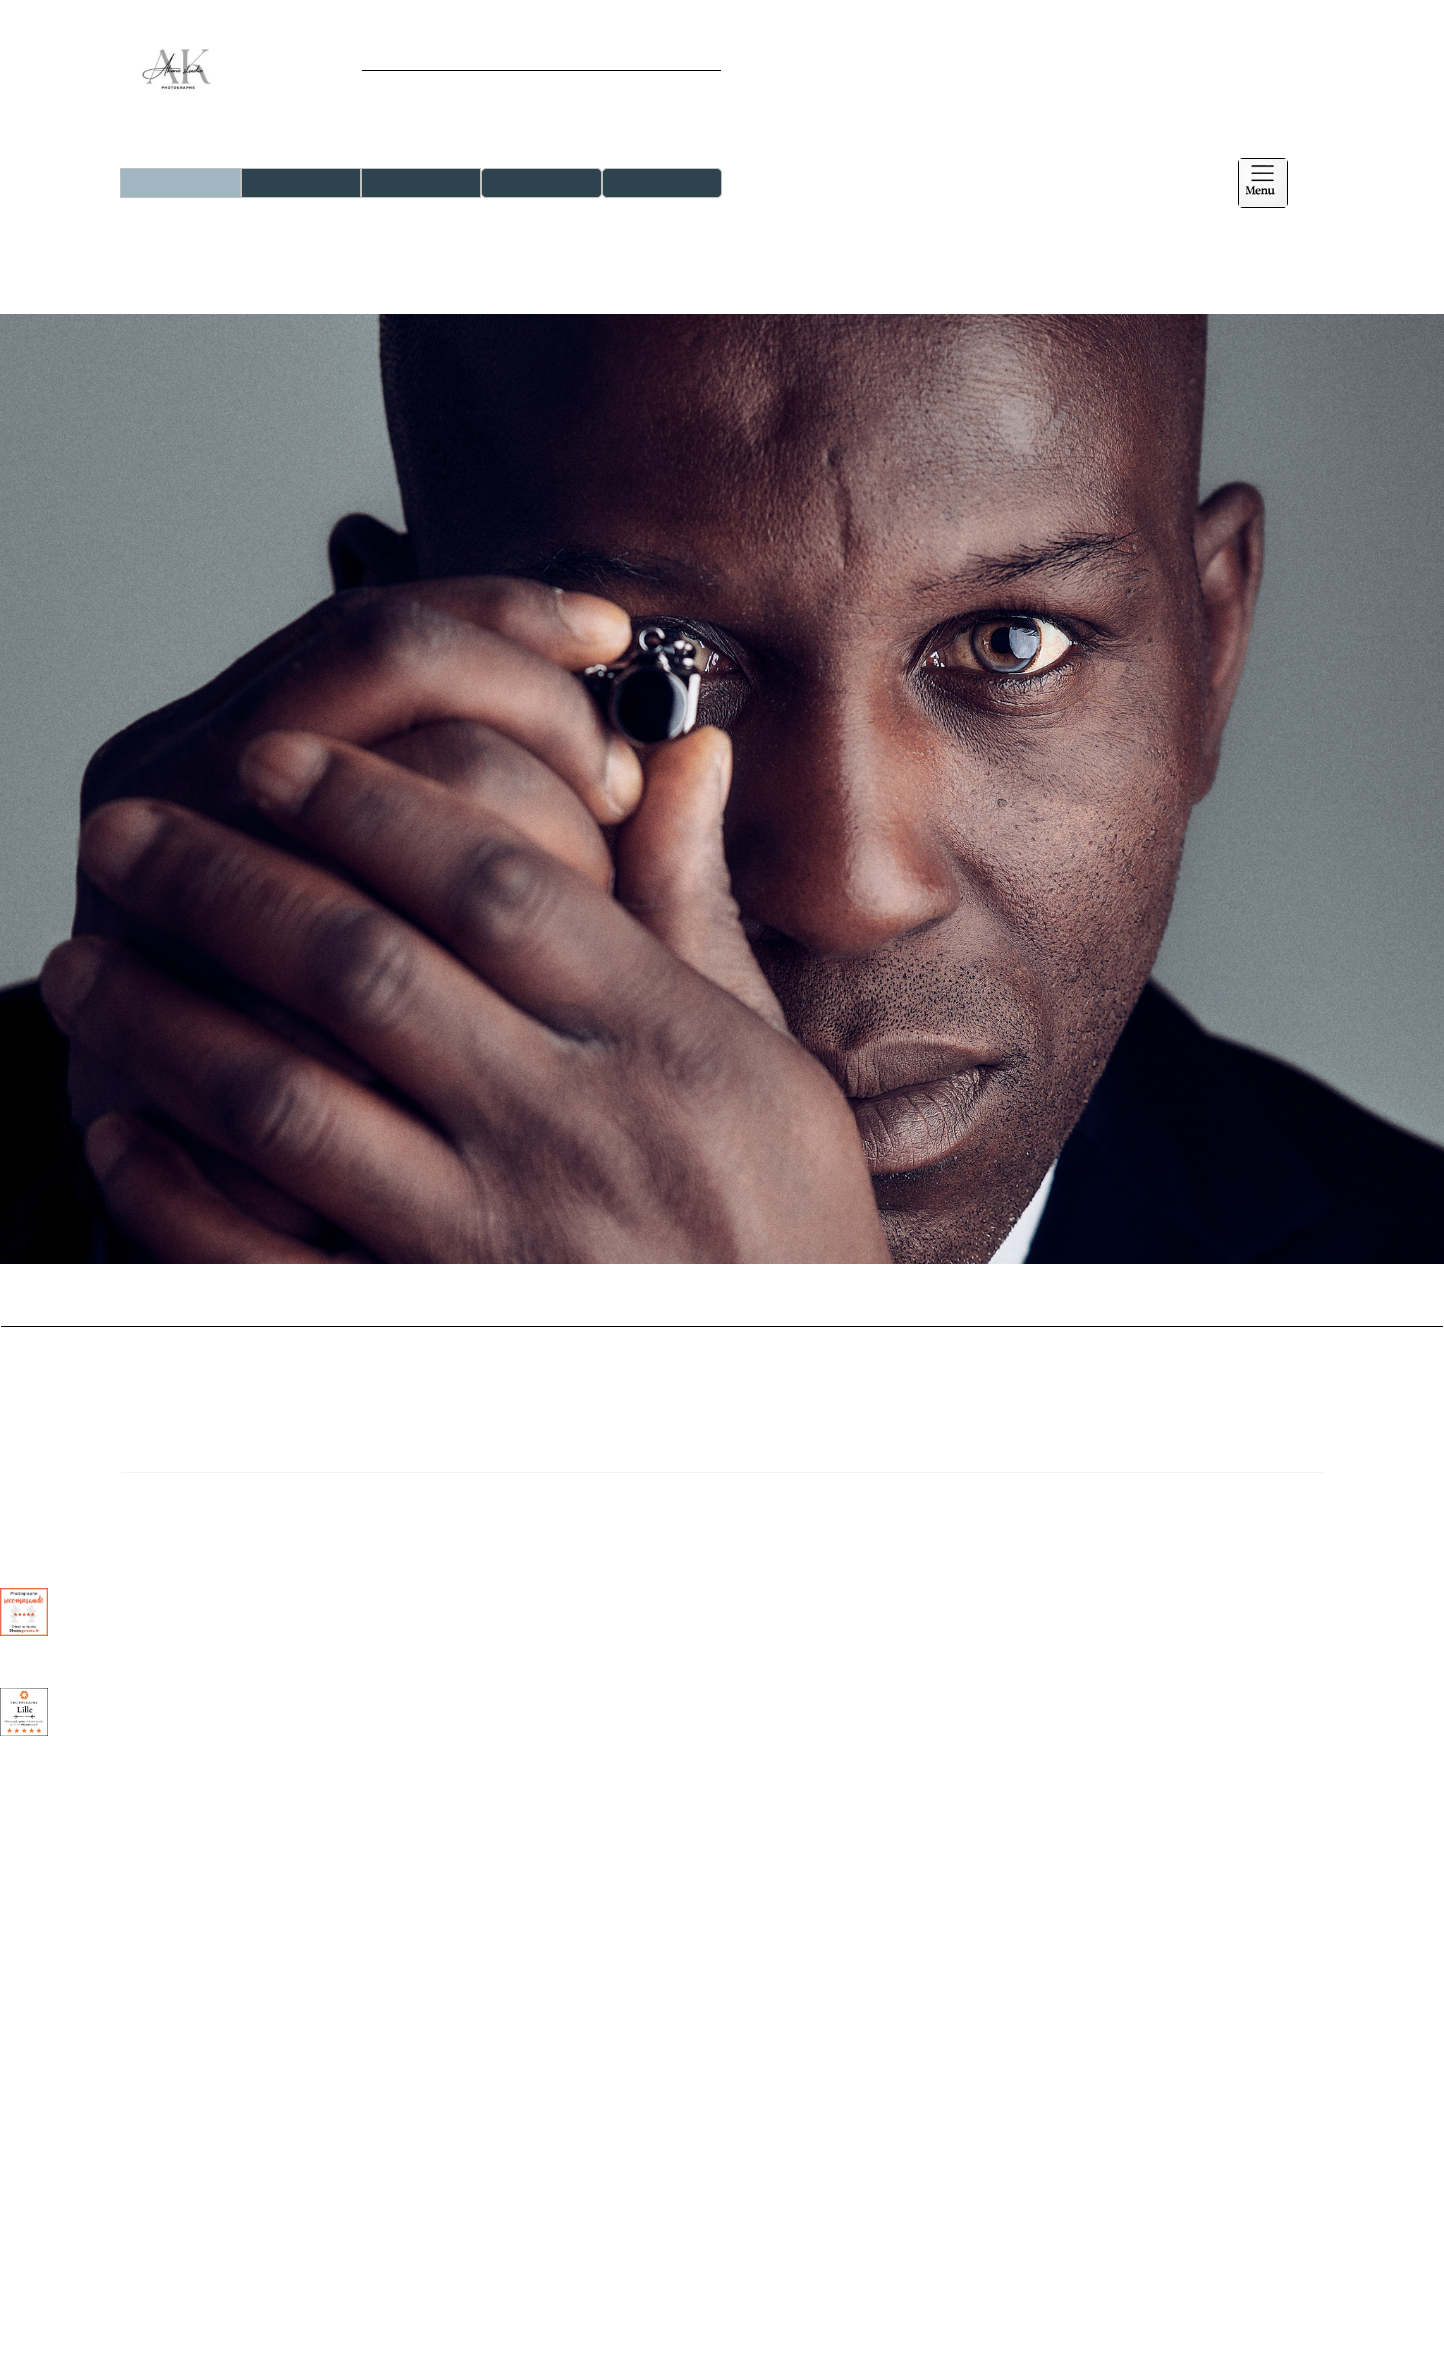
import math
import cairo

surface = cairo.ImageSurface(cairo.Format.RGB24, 1444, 2368)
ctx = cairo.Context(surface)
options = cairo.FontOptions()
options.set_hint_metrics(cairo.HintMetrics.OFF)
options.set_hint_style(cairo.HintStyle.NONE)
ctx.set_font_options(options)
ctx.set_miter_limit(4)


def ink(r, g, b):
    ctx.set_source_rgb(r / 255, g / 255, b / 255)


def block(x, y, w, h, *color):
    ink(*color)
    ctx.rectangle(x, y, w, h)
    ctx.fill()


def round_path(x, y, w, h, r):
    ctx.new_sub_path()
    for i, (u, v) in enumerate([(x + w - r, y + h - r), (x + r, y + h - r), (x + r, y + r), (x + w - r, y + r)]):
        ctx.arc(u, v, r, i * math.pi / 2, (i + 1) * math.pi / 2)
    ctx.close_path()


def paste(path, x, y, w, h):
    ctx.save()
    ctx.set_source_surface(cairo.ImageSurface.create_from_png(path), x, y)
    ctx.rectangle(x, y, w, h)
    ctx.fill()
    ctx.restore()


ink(255, 255, 255)
ctx.paint()
paste("pic1.png", 141, 48, 70, 42)
block(362, 70, 359, 1, 0, 0, 0)
ink(160, 183, 194)
ctx.rectangle(120.5, 168.5, 120, 29)
ctx.fill_preserve()
ink(192, 192, 192)
ctx.set_line_width(1)
ctx.stroke()
ink(45, 67, 77)
ctx.rectangle(241.5, 168.5, 119, 29)
ctx.fill_preserve()
ink(192, 192, 192)
ctx.stroke()
ink(45, 67, 77)
ctx.rectangle(361.5, 168.5, 119, 29)
ctx.fill_preserve()
ink(192, 192, 192)
ctx.stroke()
ink(45, 67, 77)
round_path(481.5, 168.5, 120, 29, 4.5)
ctx.fill_preserve()
ink(192, 192, 192)
ctx.stroke()
ink(45, 67, 77)
round_path(602.5, 168.5, 119, 29, 4.5)
ctx.fill_preserve()
ink(192, 192, 192)
ctx.stroke()
round_path(1238.5, 158.5, 49, 49, 4.5)
ink(0, 0, 0)
ctx.stroke()
paste("pic2.png", 1239, 159, 48, 48)
paste("pic3.png", 0, 314, 1444, 950)
block(1, 1326, 1442, 1, 0, 0, 0)
block(121, 1472, 1202, 1, 243, 243, 243)
paste("pic4.png", 0, 1588, 48, 48)
paste("pic5.png", 0, 1688, 48, 48)
surface.write_to_png("screenshot.png")
